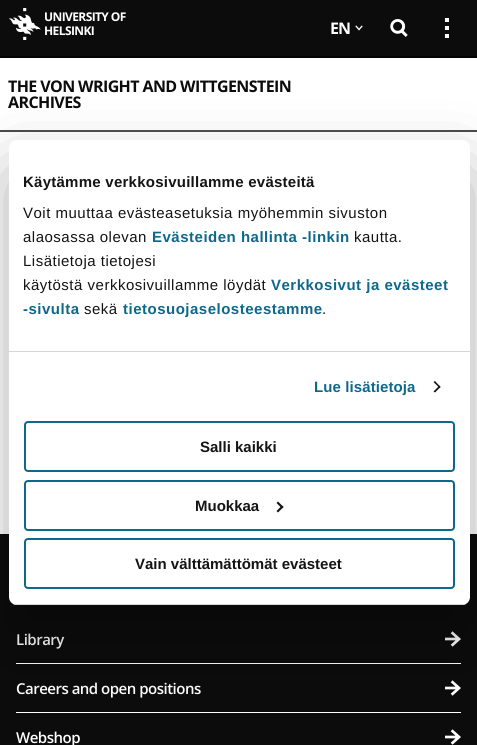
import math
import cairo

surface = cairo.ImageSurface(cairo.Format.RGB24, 477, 745)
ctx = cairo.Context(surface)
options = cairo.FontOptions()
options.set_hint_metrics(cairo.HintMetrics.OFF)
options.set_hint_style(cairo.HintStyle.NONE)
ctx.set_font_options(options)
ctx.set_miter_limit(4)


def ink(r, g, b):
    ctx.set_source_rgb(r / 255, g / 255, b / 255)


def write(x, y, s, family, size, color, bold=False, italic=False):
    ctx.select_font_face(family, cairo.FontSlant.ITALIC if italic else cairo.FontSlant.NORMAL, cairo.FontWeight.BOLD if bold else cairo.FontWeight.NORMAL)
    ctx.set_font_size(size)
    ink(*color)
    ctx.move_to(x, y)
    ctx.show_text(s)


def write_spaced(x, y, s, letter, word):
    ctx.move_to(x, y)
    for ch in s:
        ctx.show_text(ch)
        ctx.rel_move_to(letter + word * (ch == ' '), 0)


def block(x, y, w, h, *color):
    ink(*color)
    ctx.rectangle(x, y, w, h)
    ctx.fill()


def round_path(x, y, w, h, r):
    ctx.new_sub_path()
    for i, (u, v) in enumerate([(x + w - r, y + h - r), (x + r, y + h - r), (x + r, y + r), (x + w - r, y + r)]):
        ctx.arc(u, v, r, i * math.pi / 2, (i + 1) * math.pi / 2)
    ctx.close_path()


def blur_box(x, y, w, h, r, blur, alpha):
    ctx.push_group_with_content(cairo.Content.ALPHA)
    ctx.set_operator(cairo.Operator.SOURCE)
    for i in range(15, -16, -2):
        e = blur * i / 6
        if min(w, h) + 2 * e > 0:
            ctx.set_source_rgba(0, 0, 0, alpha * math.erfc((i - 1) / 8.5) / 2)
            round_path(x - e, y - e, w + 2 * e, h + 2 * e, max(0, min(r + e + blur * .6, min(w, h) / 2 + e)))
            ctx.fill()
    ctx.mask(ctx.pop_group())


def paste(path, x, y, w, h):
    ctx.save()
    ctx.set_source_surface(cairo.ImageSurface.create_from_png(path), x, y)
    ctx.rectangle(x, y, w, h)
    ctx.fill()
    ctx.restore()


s1 = dict(family="Liberation Sans", size=15, color=(20, 20, 20), bold=True)

ink(255, 255, 255)
ctx.paint()
block(0, 130, 477, 2, 77, 77, 77)
block(0, 0, 477, 56, 12, 12, 12)
block(0, 56, 477, 2, 4, 4, 4)
paste("pic1.png", 8, 8, 33, 32)
ctx.select_font_face("Open Sans", cairo.FontSlant.NORMAL, cairo.FontWeight.BOLD)
ctx.set_font_size(12)
ink(255, 255, 255)
write_spaced(44, 21, "UNIVERSITY OF", -0.6, 0)
write_spaced(44, 35, "HELSINKI", -0.6, 0)
ctx.set_font_size(16)
write_spaced(330, 34, "EN", -1, 0)
paste("pic2.png", 355, 25, 8, 6)
paste("pic3.png", 390, 19, 18, 18)
paste("pic4.png", 444, 18, 5, 20)
ink(12, 12, 12)
write_spaced(8, 92, "THE VON WRIGHT AND WITTGENSTEIN", -0.6, 0)
write_spaced(8, 108, "ARCHIVES", -0.6, 0)
block(0, 534, 477, 211, 12, 12, 12)
block(16, 663, 445, 1, 255, 255, 255)
ctx.select_font_face("Open Sans SemiBold")
ctx.set_font_size(15)
write_spaced(16, 645, "Library", -0.5, 0)
paste("pic5.png", 445, 631, 16, 16)
block(16, 712, 445, 1, 255, 255, 255)
write_spaced(16, 694, "Careers and open positions", -0.5, 0)
paste("pic5.png", 445, 680, 16, 16)
write_spaced(16, 743, "Webshop", -0.5, 0)
paste("pic5.png", 445, 729, 16, 16)
ink(0, 0, 0)
blur_box(9, 172, 461, 465, 8, 34, 0.3)
ink(255, 255, 255)
round_path(9, 140, 461, 465, 8)
ctx.fill()
block(9, 351, 461, 1, 214, 214, 214)
ctx.select_font_face("Liberation Sans", cairo.FontSlant.NORMAL, cairo.FontWeight.BOLD)
ink(20, 20, 20)
write_spaced(23, 187, "Käytämme verkkosivuillamme evästeitä", 0.25, 0)
ctx.select_font_face("Liberation Sans")
write_spaced(23, 218, "Voit muuttaa evästeasetuksia myöhemmin sivuston", 0.5, 0)
write_spaced(23, 242, "alaosassa olevan", 0.5, 0)
ctx.select_font_face("Liberation Sans", cairo.FontSlant.NORMAL, cairo.FontWeight.BOLD)
ink(14, 104, 139)
write_spaced(152, 242, "Evästeiden hallinta -linkin", 0.5, 0)
ctx.select_font_face("Liberation Sans")
ink(20, 20, 20)
write_spaced(354, 242, "kautta.", 0.5, 0)
write_spaced(23, 266, "Lisätietoja tietojesi", 0.5, 0)
write_spaced(23, 290, "käytöstä verkkosivuillamme löydät", 0.5, 0)
ctx.select_font_face("Liberation Sans", cairo.FontSlant.NORMAL, cairo.FontWeight.BOLD)
ink(14, 104, 139)
write_spaced(271, 290, "Verkkosivut ja evästeet", 0.5, 0)
write_spaced(23, 314, "-sivulta", 0.5, 0)
ctx.select_font_face("Liberation Sans")
ink(20, 20, 20)
write_spaced(84, 314, "sekä", 0.5, 0)
ctx.select_font_face("Liberation Sans", cairo.FontSlant.NORMAL, cairo.FontWeight.BOLD)
ink(14, 104, 139)
write_spaced(123, 314, "tietosuojaselosteestamme", 0.5, 0)
ctx.select_font_face("Liberation Sans")
ink(20, 20, 20)
write_spaced(322, 314, ".", 0.5, 0)
ctx.select_font_face("Liberation Sans", cairo.FontSlant.NORMAL, cairo.FontWeight.BOLD)
ink(14, 104, 139)
write_spaced(314, 392, "Lue lisätietoja", 0.1, 0)
ink(20, 20, 20)
ctx.new_path()
ctx.move_to(435, 381)
ctx.line_to(440.5, 387)
ctx.line_to(439.5, 388)
ctx.line_to(433.5, 382)
ctx.close_path()
ctx.fill()
ctx.new_path()
ctx.move_to(439.5, 385.5)
ctx.line_to(440.5, 387)
ctx.line_to(435, 392.5)
ctx.line_to(433.5, 391.5)
ctx.close_path()
ctx.fill()
ctx.save()
round_path(9, 140, 461, 465, 8)
ctx.clip()
block(9, 604, 461, 1, 214, 214, 214)
ctx.restore()
round_path(25, 422, 429, 49, 3)
ink(14, 104, 139)
ctx.stroke()
write(200, 452, "Salli kaikki", **s1)
round_path(25, 481, 429, 49, 3)
ink(14, 104, 139)
ctx.stroke()
write(195, 511, "Muokkaa", **s1)
ctx.new_path()
ctx.move_to(278, 501.5)
ctx.line_to(283.5, 507)
ctx.line_to(282, 508.5)
ctx.line_to(276.5, 503)
ctx.close_path()
ctx.fill()
ctx.new_path()
ctx.move_to(282, 505.5)
ctx.line_to(283.5, 507)
ctx.line_to(278, 512.5)
ctx.line_to(276.5, 511)
ctx.close_path()
ctx.fill()
round_path(25, 539, 429, 49, 3)
ink(14, 104, 139)
ctx.stroke()
write(135, 569, "Vain välttämättömät evästeet", **s1)
surface.write_to_png("screenshot.png")
